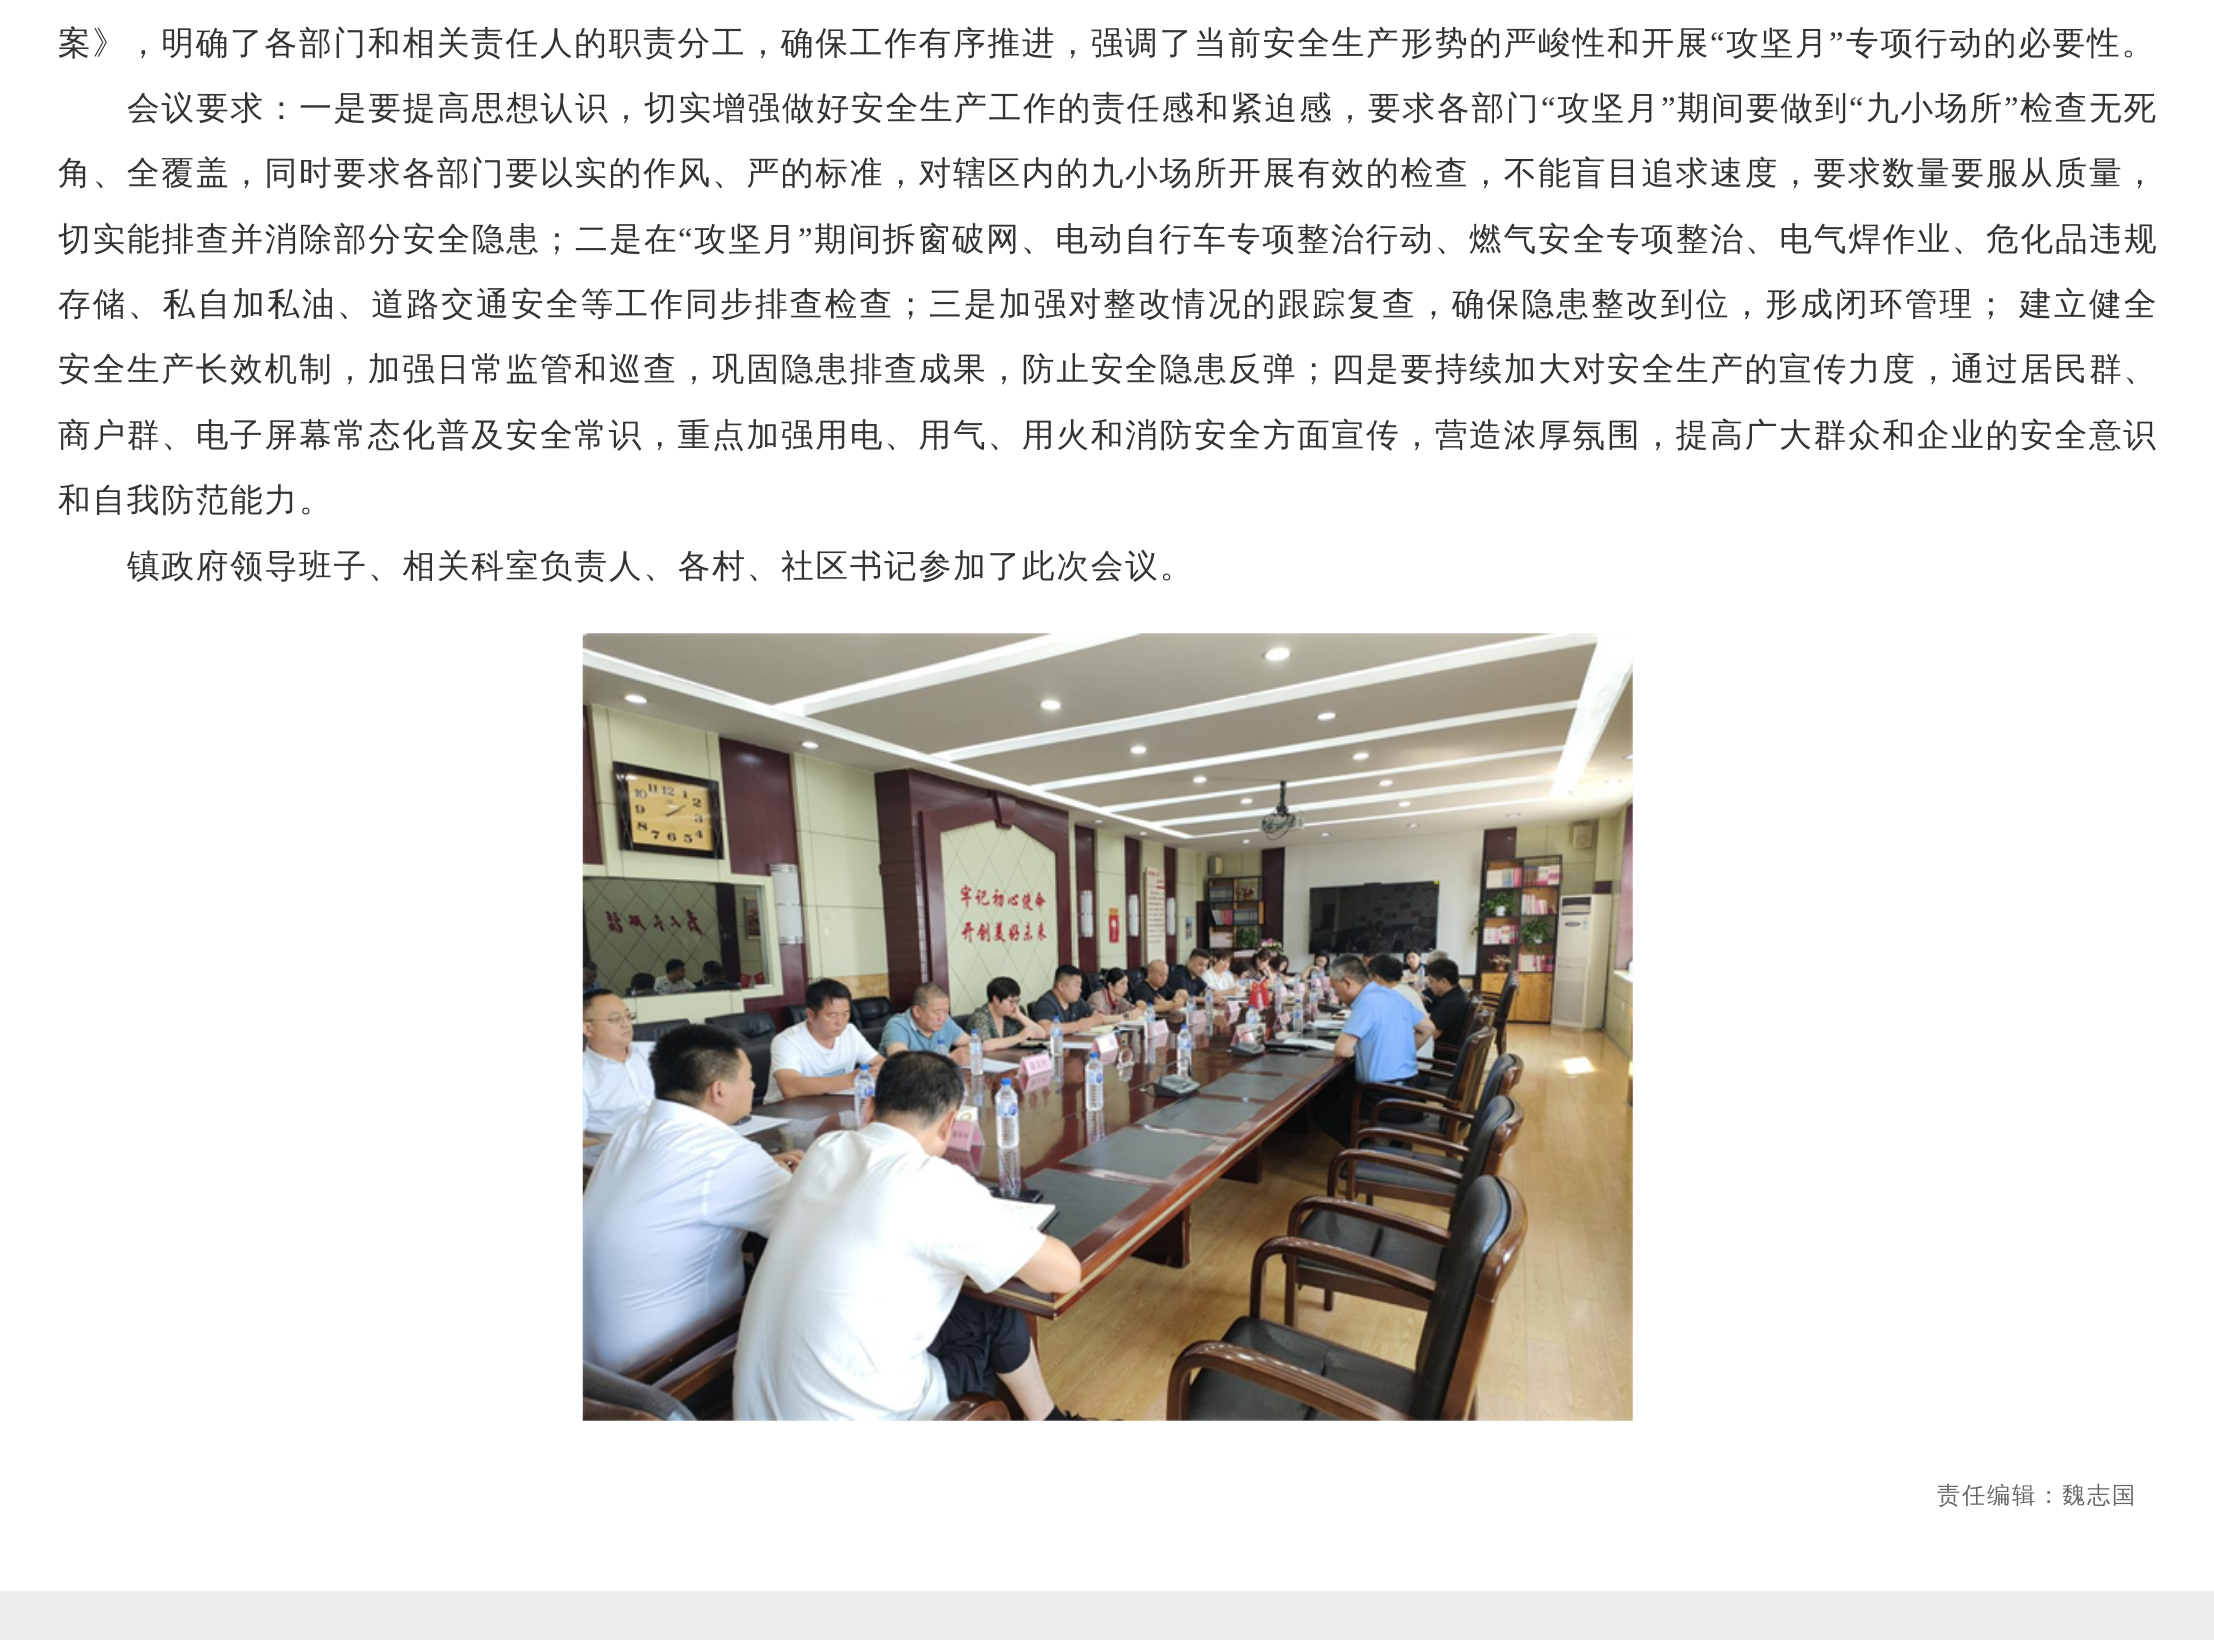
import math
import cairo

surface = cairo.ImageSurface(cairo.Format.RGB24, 2214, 1640)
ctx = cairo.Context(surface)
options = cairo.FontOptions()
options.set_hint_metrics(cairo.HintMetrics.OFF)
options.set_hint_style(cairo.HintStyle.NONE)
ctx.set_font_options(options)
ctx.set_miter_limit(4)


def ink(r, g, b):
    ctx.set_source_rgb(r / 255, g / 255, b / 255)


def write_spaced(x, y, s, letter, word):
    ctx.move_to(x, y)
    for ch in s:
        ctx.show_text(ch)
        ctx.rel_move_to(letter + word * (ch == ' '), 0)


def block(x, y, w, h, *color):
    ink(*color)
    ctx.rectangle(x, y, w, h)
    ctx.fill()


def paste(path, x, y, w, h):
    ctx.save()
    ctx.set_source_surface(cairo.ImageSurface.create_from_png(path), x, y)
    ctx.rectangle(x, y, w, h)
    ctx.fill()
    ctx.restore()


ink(255, 255, 255)
ctx.paint()
ctx.select_font_face("WenQuanYi Zen Hei Medium")
ctx.set_font_size(32.67)
ink(51, 51, 51)
write_spaced(58, 54, "案》，明确了各部门和相关责任人的职责分工，确保工作有序推进，强调了当前安全生产形势的严峻性和开展", 1.75, 0)
ctx.select_font_face("Liberation Serif")
write_spaced(1710, 54, "“", 1.75, 0)
ctx.select_font_face("WenQuanYi Zen Hei Medium")
write_spaced(1726, 54, "攻坚月", 1.75, 0)
ctx.select_font_face("Liberation Serif")
write_spaced(1829, 54, "”", 1.75, 0)
ctx.select_font_face("WenQuanYi Zen Hei Medium")
write_spaced(1846, 54, "专项行动的必要性。", 1.75, 0)
write_spaced(127, 119, "会议要求：一是要提高思想认识，切实增强做好安全生产工作的责任感和紧迫感，要求各部门", 1.8, 0)
ctx.select_font_face("Liberation Serif")
write_spaced(1541, 119, "“", 1.8, 0)
ctx.select_font_face("WenQuanYi Zen Hei Medium")
write_spaced(1557, 119, "攻坚月", 1.8, 0)
ctx.select_font_face("Liberation Serif")
write_spaced(1661, 119, "”", 1.8, 0)
ctx.select_font_face("WenQuanYi Zen Hei Medium")
write_spaced(1677, 119, "期间要做到", 1.8, 0)
ctx.select_font_face("Liberation Serif")
write_spaced(1849, 119, "“", 1.8, 0)
ctx.select_font_face("WenQuanYi Zen Hei Medium")
write_spaced(1866, 119, "九小场所", 1.8, 0)
ctx.select_font_face("Liberation Serif")
write_spaced(2004, 119, "”", 1.8, 0)
ctx.select_font_face("WenQuanYi Zen Hei Medium")
write_spaced(2020, 119, "检查无死", 1.8, 0)
write_spaced(58, 184, "角、全覆盖，同时要求各部门要以实的作风、严的标准，对辖区内的九小场所开展有效的检查，不能盲目追求速度，要求数量要服从质量，", 1.75, 0)
write_spaced(58, 250, "切实能排查并消除部分安全隐患；二是在", 1.8, 0)
ctx.select_font_face("Liberation Serif")
write_spaced(678, 250, "“", 1.8, 0)
ctx.select_font_face("WenQuanYi Zen Hei Medium")
write_spaced(694, 250, "攻坚月", 1.8, 0)
ctx.select_font_face("Liberation Serif")
write_spaced(798, 250, "”", 1.8, 0)
ctx.select_font_face("WenQuanYi Zen Hei Medium")
write_spaced(814, 250, "期间拆窗破网、电动自行车专项整治行动、燃气安全专项整治、电气焊作业、危化品违规", 1.8, 0)
write_spaced(58, 315, "存储、私自加私油、道路交通安全等工作同步排查检查；三是加强对整改情况的跟踪复查，确保隐患整改到位，形成闭环管理； 建立健全", 2.17, -2)
write_spaced(58, 380, "安全生产长效机制，加强日常监管和巡查，巩固隐患排查成果，防止安全隐患反弹；四是要持续加大对安全生产的宣传力度，通过居民群、", 1.75, 0)
write_spaced(58, 446, "商户群、电子屏幕常态化普及安全常识，重点加强用电、用气、用火和消防安全方面宣传，营造浓厚氛围，提高广大群众和企业的安全意识", 1.75, 0)
write_spaced(58, 511, "和自我防范能力。", 1.75, 0)
write_spaced(127, 577, "镇政府领导班子、相关科室负责人、各村、社区书记参加了此次会议。", 1.75, 0)
paste("pic1.png", 582, 633, 1051, 788)
ctx.set_font_size(23.25)
ink(102, 102, 102)
write_spaced(1937, 1503, "责任编辑：魏志国", 1.75, 0)
block(0, 1591, 2214, 49, 238, 238, 238)
surface.write_to_png("screenshot.png")
